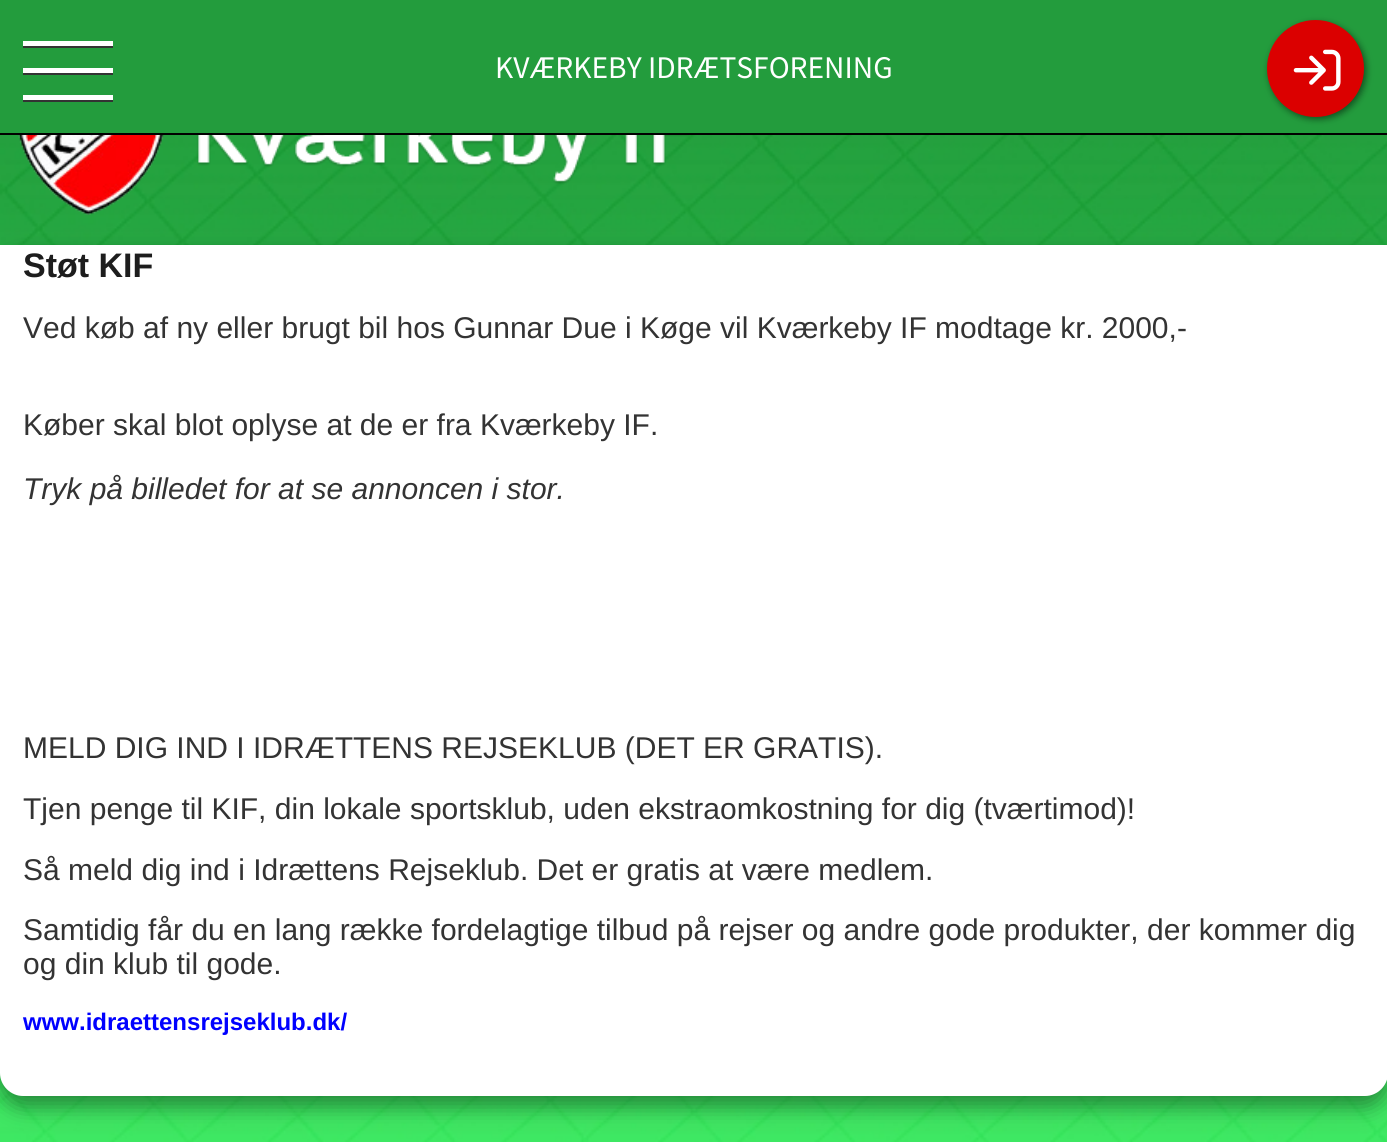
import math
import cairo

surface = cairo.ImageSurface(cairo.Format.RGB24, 1387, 1142)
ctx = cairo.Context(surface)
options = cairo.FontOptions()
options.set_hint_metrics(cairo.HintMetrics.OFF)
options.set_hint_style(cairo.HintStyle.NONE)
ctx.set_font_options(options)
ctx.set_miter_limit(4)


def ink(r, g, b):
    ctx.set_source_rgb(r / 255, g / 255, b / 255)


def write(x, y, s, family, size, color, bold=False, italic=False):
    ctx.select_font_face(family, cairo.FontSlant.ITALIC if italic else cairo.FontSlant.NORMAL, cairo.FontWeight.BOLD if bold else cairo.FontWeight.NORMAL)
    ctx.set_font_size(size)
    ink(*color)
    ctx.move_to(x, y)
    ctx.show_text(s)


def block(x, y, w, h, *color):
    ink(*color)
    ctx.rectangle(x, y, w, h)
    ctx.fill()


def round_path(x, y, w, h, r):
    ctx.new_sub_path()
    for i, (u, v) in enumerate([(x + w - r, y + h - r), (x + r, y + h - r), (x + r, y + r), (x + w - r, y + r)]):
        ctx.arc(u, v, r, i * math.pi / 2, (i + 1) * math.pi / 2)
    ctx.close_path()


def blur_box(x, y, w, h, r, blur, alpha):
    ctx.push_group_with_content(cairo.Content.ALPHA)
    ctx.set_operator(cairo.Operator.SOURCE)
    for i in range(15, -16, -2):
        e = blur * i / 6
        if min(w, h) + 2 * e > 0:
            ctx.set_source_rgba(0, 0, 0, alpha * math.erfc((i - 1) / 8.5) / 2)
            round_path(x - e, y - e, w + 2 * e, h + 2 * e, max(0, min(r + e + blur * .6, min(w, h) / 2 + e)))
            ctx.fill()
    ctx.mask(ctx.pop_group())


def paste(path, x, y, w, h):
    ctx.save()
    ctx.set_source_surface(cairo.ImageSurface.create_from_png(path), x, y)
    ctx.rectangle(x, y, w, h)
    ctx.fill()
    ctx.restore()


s1 = dict(family="Source Sans Pro", size=31.5, color=(255, 255, 255))
s2 = dict(family="Liberation Sans", size=34, color=(29, 29, 29), bold=True)
s3 = dict(family="Liberation Sans", size=30, color=(51, 51, 51))
s4 = dict(family="Liberation Sans", size=30, color=(51, 51, 51), italic=True)
s5 = dict(family="Liberation Sans", size=24, color=(0, 0, 255), bold=True)

ink(255, 255, 255)
ctx.paint()
block(0, 0, 1387, 133, 35, 156, 61)
block(0, 133, 1387, 2, 0, 0, 0)
ink(51, 51, 51)
ctx.new_path()
ctx.move_to(23, 45)
ctx.line_to(23, 48)
ctx.line_to(113, 48)
ctx.line_to(113, 43)
ctx.line_to(112, 43)
ctx.line_to(112, 45)
ctx.close_path()
ctx.fill()
block(23, 41, 90, 5, 255, 255, 255)
ink(51, 51, 51)
ctx.new_path()
ctx.move_to(23, 72)
ctx.line_to(23, 75)
ctx.line_to(113, 75)
ctx.line_to(113, 70)
ctx.line_to(112, 70)
ctx.line_to(112, 72)
ctx.close_path()
ctx.fill()
block(23, 68, 90, 5, 255, 255, 255)
ink(51, 51, 51)
ctx.new_path()
ctx.move_to(23, 99)
ctx.line_to(23, 102)
ctx.line_to(113, 102)
ctx.line_to(113, 97)
ctx.line_to(112, 97)
ctx.line_to(112, 99)
ctx.close_path()
ctx.fill()
block(23, 95, 90, 5, 255, 255, 255)
write(495, 78, "KVÆRKEBY IDRÆTSFORENING", **s1)
ink(0, 0, 0)
blur_box(1269, 23, 97, 96, 48, 3.5, 0.5)
ink(219, 0, 0)
ctx.arc(1315.5, 68.5, 48.5, 0, 2 * math.pi)
ctx.fill()
paste("pic1.png", 1293, 49, 48, 42)
paste("pic2.png", 0, 135, 1387, 1007)
paste("pic3.png", 18, 135, 672, 80)
ink(0, 0, 0)
blur_box(0, 257, 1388, 850, 23, 11, 0.4)
ink(255, 255, 255)
ctx.new_path()
ctx.move_to(0, 245)
ctx.line_to(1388, 245)
ctx.line_to(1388, 1073)
ctx.curve_to(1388, 1085.5, 1377.5, 1096, 1365, 1096)
ctx.line_to(23, 1096)
ctx.curve_to(10.5, 1096, 0, 1085.5, 0, 1073)
ctx.close_path()
ctx.fill()
write(23, 277, "Støt KIF", **s2)
write(23, 338, "Ved køb af ny eller brugt bil hos Gunnar Due i Køge vil Kværkeby IF modtage kr. 2000,-", **s3)
write(23, 435, "Køber skal blot oplyse at de er fra Kværkeby IF.", **s3)
write(23, 499, "Tryk på billedet for at se annoncen i stor.", **s4)
write(23, 758, "MELD DIG IND I IDRÆTTENS REJSEKLUB (DET ER GRATIS).", **s3)
write(23, 819, "Tjen penge til KIF, din lokale sportsklub, uden ekstraomkostning for dig (tværtimod)!", **s3)
write(23, 880, "Så meld dig ind i Idrættens Rejseklub. Det er gratis at være medlem.", **s3)
write(23, 940, "Samtidig får du en lang række fordelagtige tilbud på rejser og andre gode produkter, der kommer dig", **s3)
write(23, 974, "og din klub til gode.", **s3)
write(23, 1030, "www.idraettensrejseklub.dk/", **s5)
surface.write_to_png("screenshot.png")
